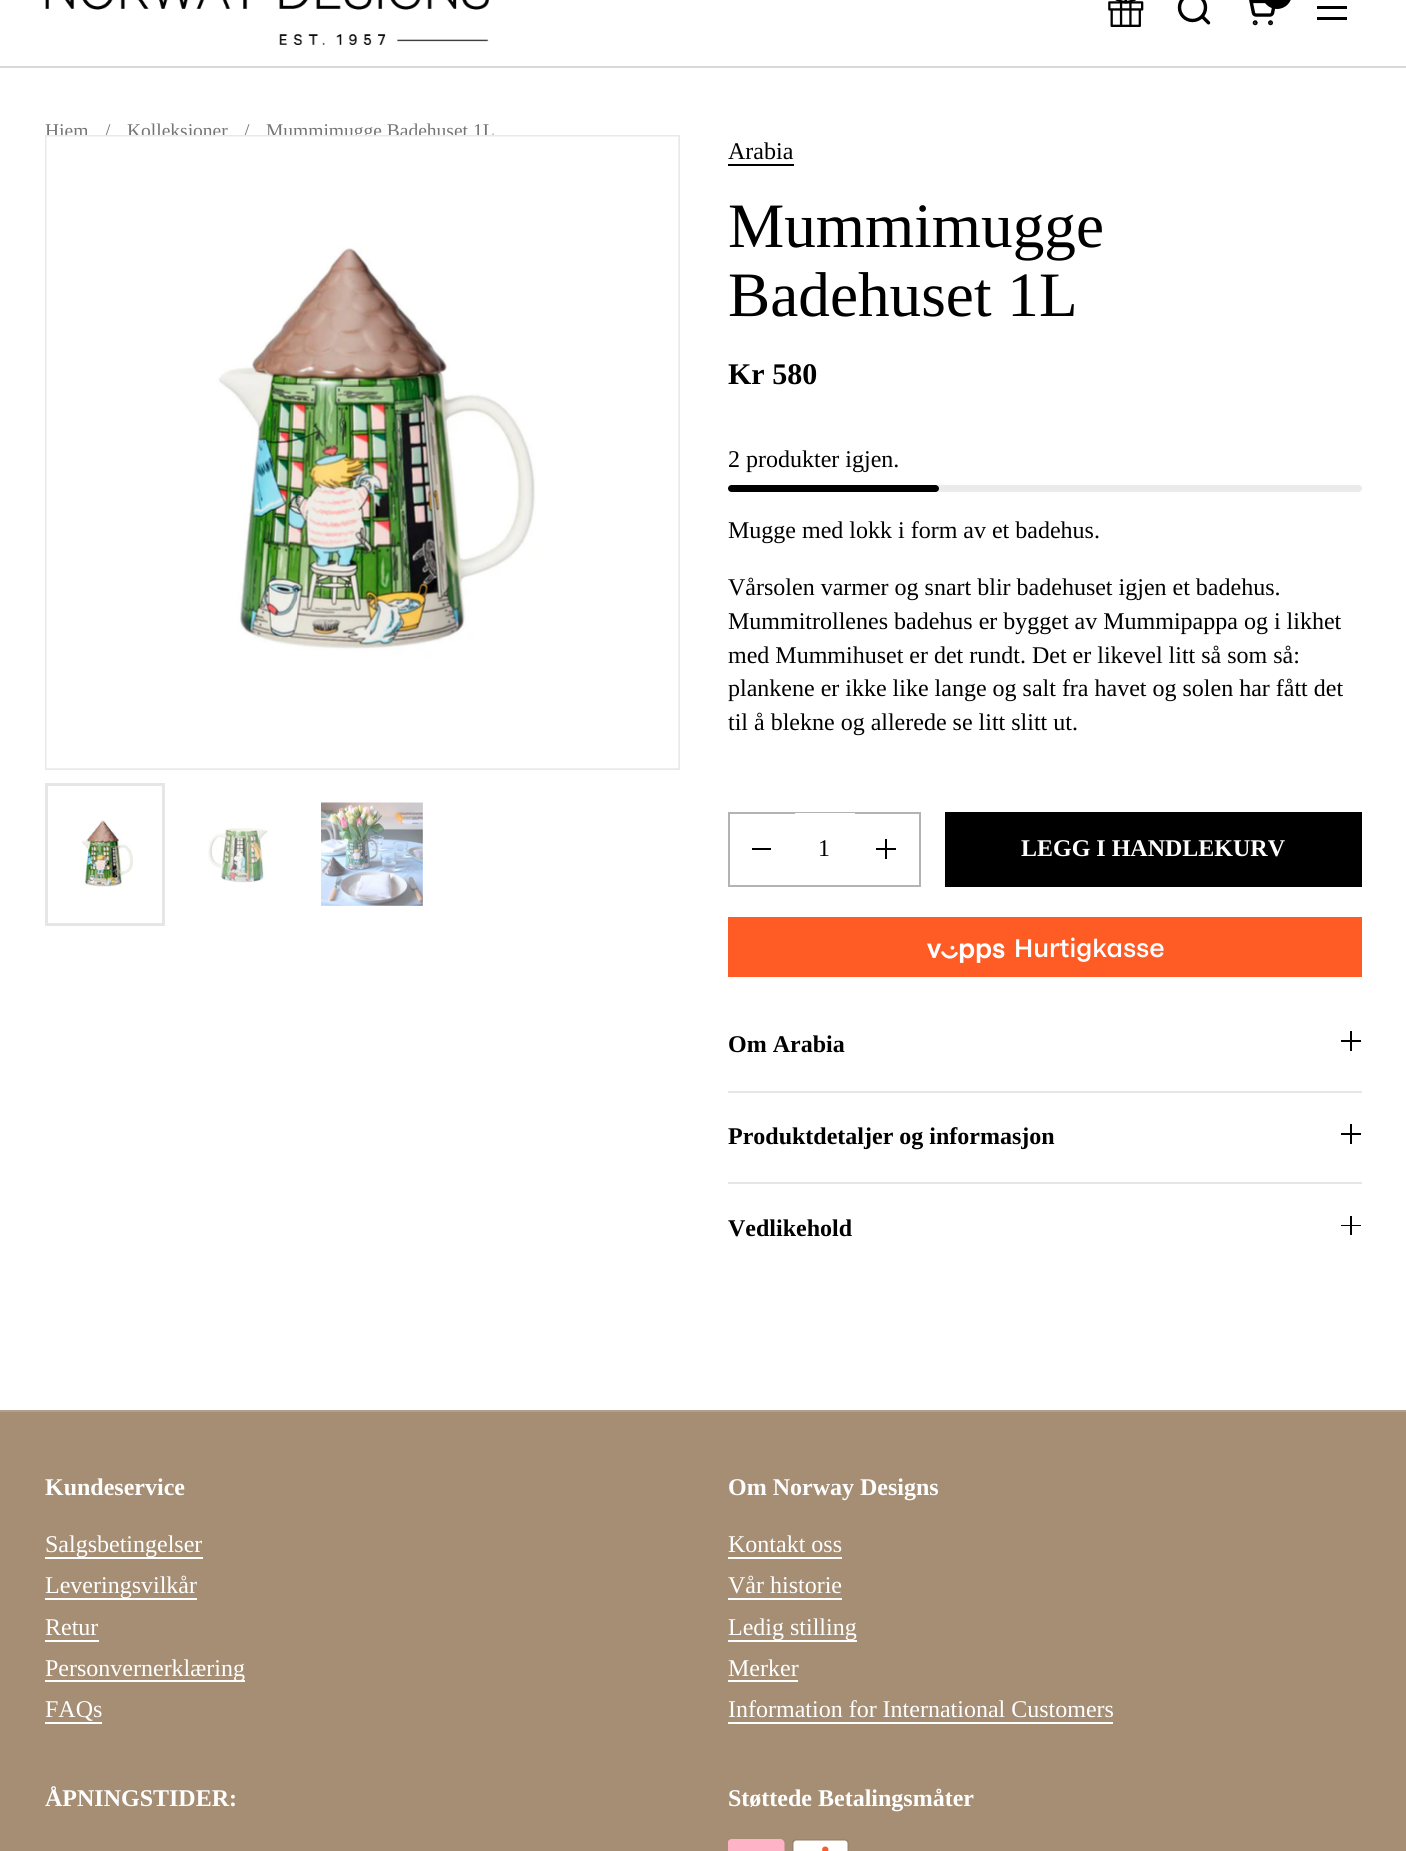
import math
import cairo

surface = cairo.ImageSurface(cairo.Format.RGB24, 1406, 1851)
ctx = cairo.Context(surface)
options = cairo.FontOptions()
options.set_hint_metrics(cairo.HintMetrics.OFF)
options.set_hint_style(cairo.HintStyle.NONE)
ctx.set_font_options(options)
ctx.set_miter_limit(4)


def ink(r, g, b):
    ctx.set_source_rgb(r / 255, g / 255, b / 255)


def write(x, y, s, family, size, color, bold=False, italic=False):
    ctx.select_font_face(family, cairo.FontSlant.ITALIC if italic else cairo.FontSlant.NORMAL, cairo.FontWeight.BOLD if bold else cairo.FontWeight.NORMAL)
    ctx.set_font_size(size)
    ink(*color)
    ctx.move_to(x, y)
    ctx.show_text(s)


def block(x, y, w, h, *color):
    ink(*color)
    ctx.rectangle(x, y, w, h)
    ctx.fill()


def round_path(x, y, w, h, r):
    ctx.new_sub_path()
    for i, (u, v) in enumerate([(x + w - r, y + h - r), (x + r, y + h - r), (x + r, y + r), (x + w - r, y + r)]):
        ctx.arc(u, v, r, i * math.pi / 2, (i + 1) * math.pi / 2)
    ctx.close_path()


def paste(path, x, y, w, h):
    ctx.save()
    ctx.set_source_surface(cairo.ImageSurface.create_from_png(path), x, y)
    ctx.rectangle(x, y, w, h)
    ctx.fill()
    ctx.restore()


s1 = dict(family="Liberation Serif", size=19.5, color=(117, 117, 117))
s2 = dict(family="Liberation Serif", size=24, color=(0, 0, 0))
s3 = dict(family="Liberation Serif", size=63.25, color=(0, 0, 0))
s4 = dict(family="Liberation Serif", size=30, color=(0, 0, 0), bold=True)
s5 = dict(family="Liberation Serif", size=24, color=(255, 255, 255), bold=True)
s6 = dict(family="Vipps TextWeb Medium", size=27, color=(255, 255, 255))
s7 = dict(family="Liberation Serif", size=24, color=(0, 0, 0), bold=True)
s8 = dict(family="Liberation Serif", size=24, color=(255, 255, 255))

ink(255, 255, 255)
ctx.paint()
paste("pic1.png", 45, 0, 444, 45)
paste("pic2.png", 1108, 0, 36, 27)
paste("pic3.png", 1177, 0, 34, 25)
ink(0, 0, 0)
round_path(1262, -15, 30, 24, 15)
ctx.fill()
paste("pic4.png", 1249, 0, 26, 26)
block(1317, 6, 30, 3, 0, 0, 0)
block(1317, 17, 30, 3, 0, 0, 0)
block(0, 66, 1406, 2, 217, 217, 217)
write(45, 137, "Hjem", **s1)
write(105, 137, "/", **s1)
write(127, 137, "Kolleksjoner", **s1)
write(244, 137, "/", **s1)
write(266, 137, "Mummimugge Badehuset 1L", **s1)
ctx.rectangle(46, 136, 633, 633)
ink(237, 232, 229)
ctx.stroke()
paste("pic5.png", 46, 136, 633, 633)
ctx.rectangle(46.5, 784.5, 117, 140)
ink(230, 230, 230)
ctx.set_line_width(3)
ctx.stroke()
paste("pic6.png", 81, 820, 52, 67)
paste("pic7.png", 208, 828, 60, 55)
paste("pic8.png", 321, 802, 102, 104)
write(728, 159, "Arabia", **s2)
block(728, 164, 66, 2, 0, 0, 0)
write(728, 247, "Mummimugge", **s3)
write(728, 316, "Badehuset 1L", **s3)
write(728, 384, "Kr 580", **s4)
write(728, 467, "2 produkter igjen.", **s2)
ink(235, 235, 235)
round_path(728, 485, 634, 7, 3.5)
ctx.fill()
ink(0, 0, 0)
round_path(728, 485, 211, 7, 3.5)
ctx.fill()
write(728, 538, "Mugge med lokk i form av et badehus.", **s2)
write(728, 595, "Vårsolen varmer og snart blir badehuset igjen et badehus.", **s2)
write(728, 629, "Mummitrollenes badehus er bygget av Mummipappa og i likhet", **s2)
write(728, 663, "med Mummihuset er det rundt. Det er likevel litt så som så:", **s2)
write(728, 696, "plankene er ikke like lange og salt fra havet og solen har fått det", **s2)
write(728, 730, "til å blekne og allerede se litt slitt ut.", **s2)
ctx.rectangle(729, 813, 191, 73)
ink(179, 179, 179)
ctx.set_line_width(2)
ctx.stroke()
block(752, 848, 19, 2, 0, 0, 0)
block(795, 813, 60, 1, 255, 255, 255)
write(818, 856, "1", **s2)
block(885, 839, 2, 20, 0, 0, 0)
block(876, 848, 20, 2, 0, 0, 0)
block(945, 812, 417, 75, 0, 0, 0)
write(1021, 856, "LEGG I HANDLEKURV", **s5)
block(728, 917, 634, 60, 255, 91, 36)
paste("pic9.png", 927, 943, 78, 20)
write(1014, 957, "Hurtigkasse", **s6)
write(728, 1052, "Om Arabia", **s7)
block(1350, 1031, 2, 20, 0, 0, 0)
block(1341, 1040, 20, 2, 0, 0, 0)
block(728, 1091, 634, 2, 230, 230, 230)
write(728, 1144, "Produktdetaljer og informasjon", **s7)
block(1350, 1124, 2, 20, 0, 0, 0)
block(1341, 1133, 20, 2, 0, 0, 0)
block(728, 1182, 634, 2, 230, 230, 230)
write(728, 1236, "Vedlikehold", **s7)
block(1350, 1216, 2, 19, 0, 0, 0)
block(1341, 1225, 20, 1, 0, 0, 0)
block(0, 1412, 1406, 439, 165, 142, 116)
block(0, 1410, 1406, 2, 179, 159, 137)
write(45, 1495, "Kundeservice", **s5)
block(45, 1557, 158, 2, 255, 255, 255)
write(45, 1552, "Salgsbetingelser", **s8)
block(45, 1598, 152, 2, 255, 255, 255)
write(45, 1593, "Leveringsvilkår", **s8)
write(45, 1635, "Retur", **s8)
block(45, 1640, 54, 2, 255, 255, 255)
block(45, 1680, 200, 2, 255, 255, 255)
write(45, 1676, "Personvernerklæring", **s8)
write(45, 1717, "FAQs", **s8)
block(45, 1722, 57, 2, 255, 255, 255)
write(728, 1495, "Om Norway Designs", **s5)
write(728, 1552, "Kontakt oss", **s8)
block(728, 1557, 114, 2, 255, 255, 255)
write(728, 1593, "Vår historie", **s8)
block(728, 1598, 114, 2, 255, 255, 255)
block(728, 1640, 129, 2, 255, 255, 255)
write(728, 1635, "Ledig stilling", **s8)
write(728, 1676, "Merker", **s8)
block(728, 1680, 70, 2, 255, 255, 255)
write(728, 1717, "Information for International Customers", **s8)
block(728, 1722, 385, 2, 255, 255, 255)
write(45, 1806, "ÅPNINGSTIDER:", **s5)
write(728, 1806, "Støttede Betalingsmåter", **s5)
paste("pic10.png", 728, 1839, 57, 12)
paste("pic11.png", 792, 1839, 57, 12)
surface.write_to_png("screenshot.png")
